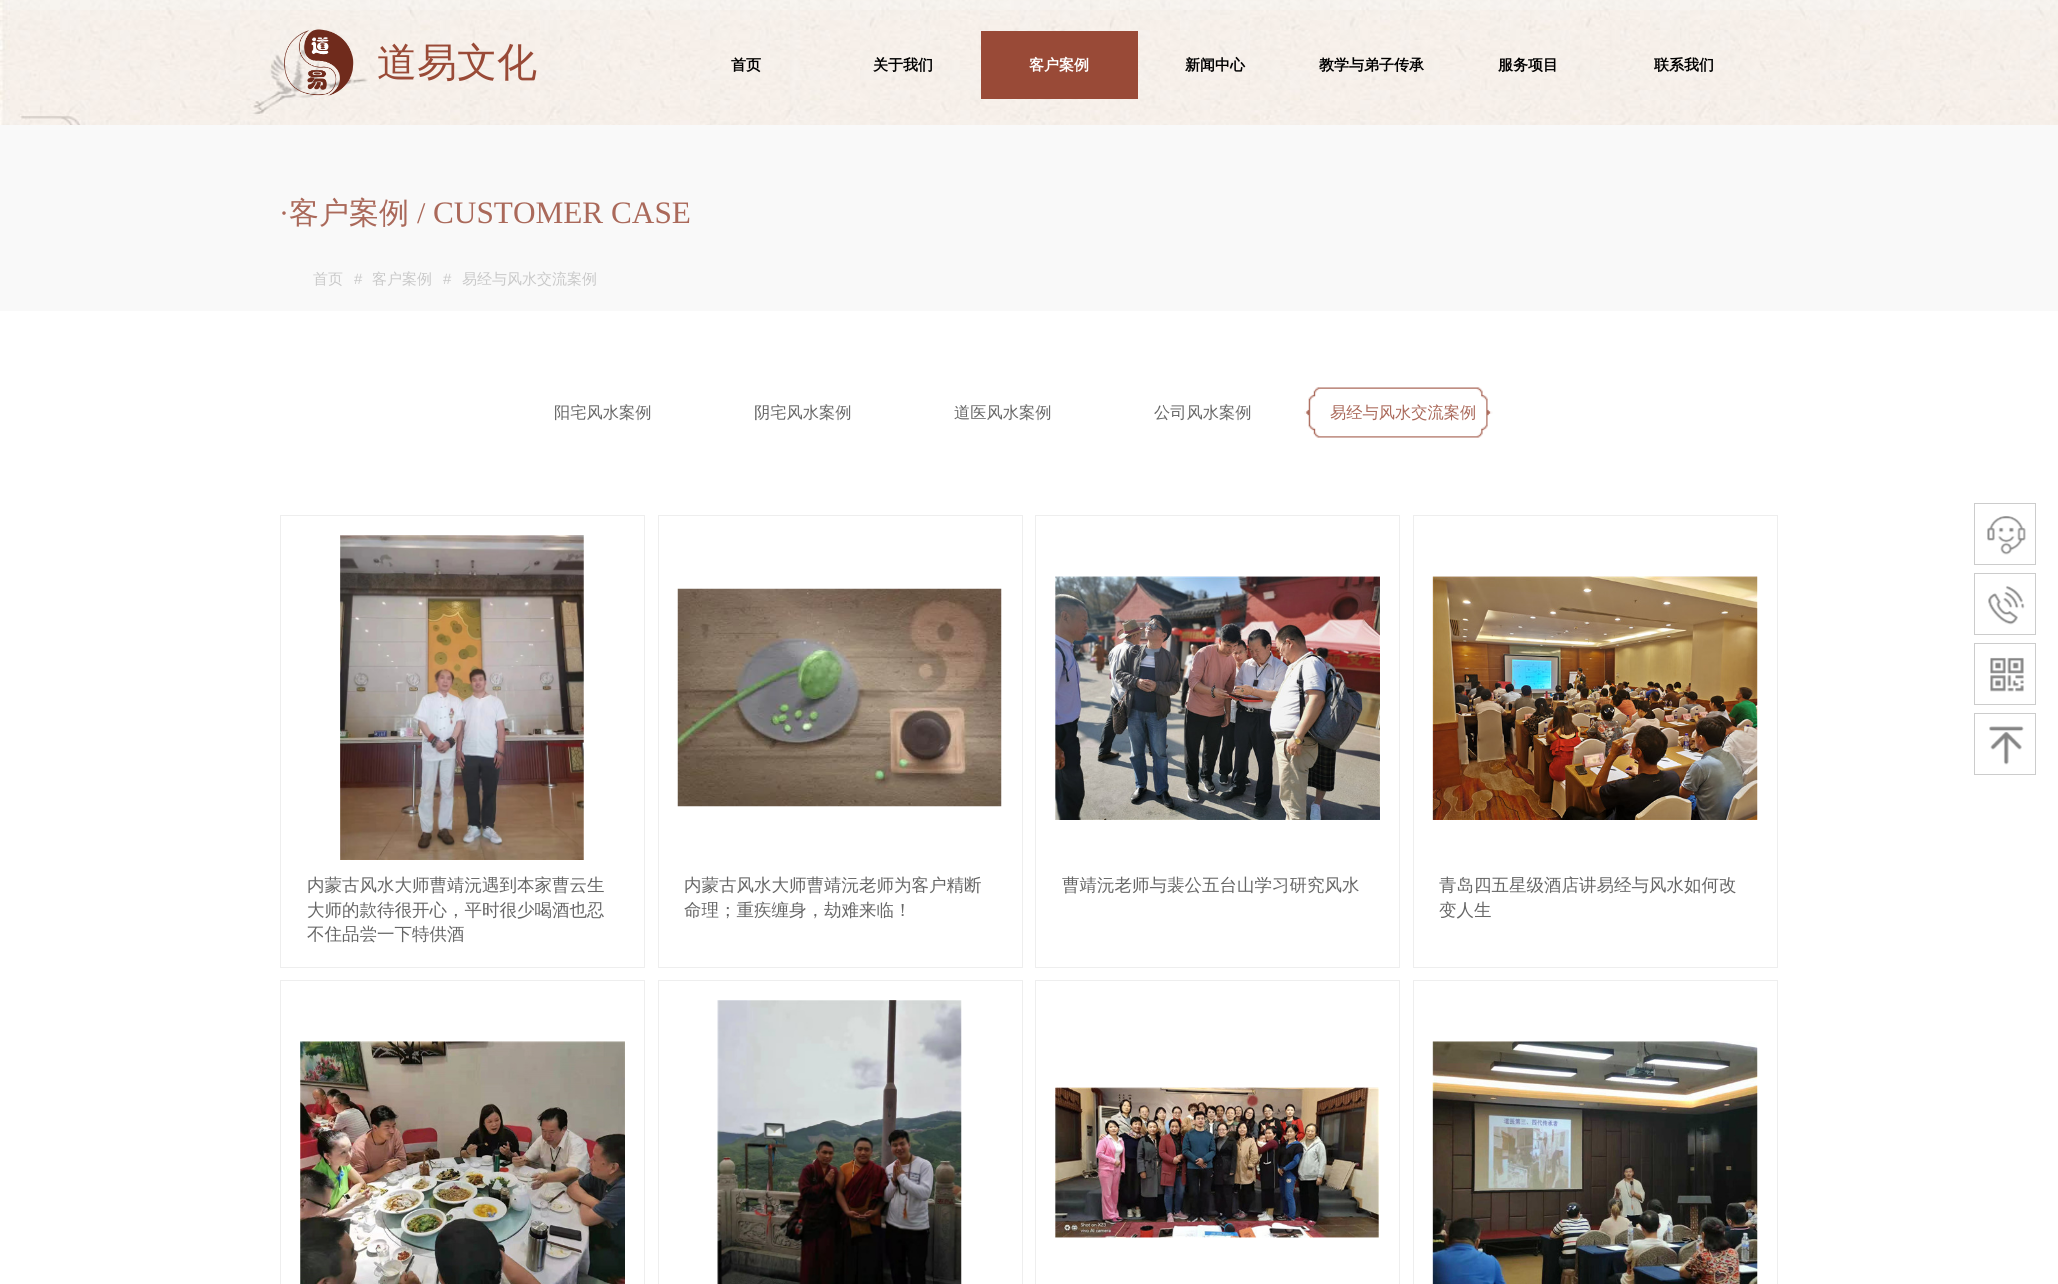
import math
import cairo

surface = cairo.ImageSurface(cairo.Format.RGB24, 2058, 1284)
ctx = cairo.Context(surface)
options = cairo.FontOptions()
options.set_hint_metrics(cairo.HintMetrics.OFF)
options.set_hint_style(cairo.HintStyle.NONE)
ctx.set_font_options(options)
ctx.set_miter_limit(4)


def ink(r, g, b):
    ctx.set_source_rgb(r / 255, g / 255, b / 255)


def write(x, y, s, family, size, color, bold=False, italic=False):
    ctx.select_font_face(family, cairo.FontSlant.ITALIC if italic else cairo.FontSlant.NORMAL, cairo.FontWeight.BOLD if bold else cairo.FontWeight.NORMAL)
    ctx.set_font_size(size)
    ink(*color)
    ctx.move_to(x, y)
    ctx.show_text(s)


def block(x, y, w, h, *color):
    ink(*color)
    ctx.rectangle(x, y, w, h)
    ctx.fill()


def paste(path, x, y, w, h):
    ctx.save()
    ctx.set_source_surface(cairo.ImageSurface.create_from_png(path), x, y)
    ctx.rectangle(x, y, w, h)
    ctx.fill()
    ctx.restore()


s1 = dict(family="WenQuanYi Zen Hei Medium", size=40, color=(153, 74, 55))
s2 = dict(family="WenQuanYi Zen Hei", size=15, color=(0, 0, 0), bold=True)
s3 = dict(family="WenQuanYi Zen Hei", size=15, color=(255, 255, 255), bold=True)
s4 = dict(family="Liberation Serif", size=30, color=(170, 105, 90))
s5 = dict(family="WenQuanYi Zen Hei Medium", size=30, color=(170, 105, 90))
s6 = dict(family="Liberation Serif", size=31.25, color=(170, 105, 90))
s7 = dict(family="WenQuanYi Zen Hei Medium", size=15, color=(201, 201, 201))
s8 = dict(family="Liberation Sans", size=15, color=(201, 201, 201))
s9 = dict(family="WenQuanYi Zen Hei Medium", size=16.25, color=(102, 102, 102))
s10 = dict(family="WenQuanYi Zen Hei Medium", size=16.25, color=(170, 105, 90))
s11 = dict(family="WenQuanYi Zen Hei Medium", size=17.5, color=(102, 102, 102))

ink(255, 255, 255)
ctx.paint()
paste("pic1.png", 0, 0, 2058, 125)
paste("pic2.png", 284, 29, 70, 67)
write(377, 76, "道易文化", **s1)
write(731, 70, "首页", **s2)
write(873, 70, "关于我们", **s2)
block(981, 31, 157, 68, 153, 74, 55)
write(1029, 70, "客户案例", **s3)
write(1185, 70, "新闻中心", **s2)
write(1319, 70, "教学与弟子传承", **s2)
write(1498, 70, "服务项目", **s2)
write(1654, 70, "联系我们", **s2)
block(0, 125, 2058, 186, 249, 249, 249)
write(279, 223, "·", **s4)
write(289, 223, "客户案例", **s5)
write(417, 223, "/", **s4)
write(433, 223, "CUSTOMER CASE", **s6)
write(313, 284, "首页", **s7)
write(354, 284, "#", **s8)
write(372, 284, "客户案例", **s7)
write(443, 284, "#", **s8)
write(462, 284, "易经与风水交流案例", **s7)
write(554, 418, "阳宅风水案例", **s9)
write(754, 418, "阴宅风水案例", **s9)
write(954, 418, "道医风水案例", **s9)
write(1154, 418, "公司风水案例", **s9)
paste("pic3.png", 1304, 387, 189, 51)
write(1330, 418, "易经与风水交流案例", **s10)
ctx.rectangle(280.5, 515.5, 364, 452)
ink(238, 238, 238)
ctx.set_line_width(1)
ctx.stroke()
paste("pic4.png", 340, 535, 244, 325)
write(307, 891, "内蒙古风水大师曹靖沅遇到本家曹云生", **s11)
write(307, 916, "大师的款待很开心，平时很少喝酒也忍", **s11)
write(307, 940, "不住品尝一下特供酒", **s11)
ctx.rectangle(658.5, 515.5, 364, 452)
ink(238, 238, 238)
ctx.stroke()
paste("pic5.png", 677, 588, 325, 219)
write(684, 891, "内蒙古风水大师曹靖沅老师为客户精断", **s11)
write(684, 916, "命理；重疾缠身，劫难来临！", **s11)
ctx.rectangle(1035.5, 515.5, 364, 452)
ink(238, 238, 238)
ctx.stroke()
paste("pic6.png", 1055, 576, 325, 244)
write(1062, 891, "曹靖沅老师与裴公五台山学习研究风水", **s11)
ctx.rectangle(1413.5, 515.5, 364, 452)
ink(238, 238, 238)
ctx.stroke()
paste("pic7.png", 1432, 576, 326, 244)
write(1439, 891, "青岛四五星级酒店讲易经与风水如何改", **s11)
write(1439, 916, "变人生", **s11)
ctx.rectangle(280.5, 980.5, 364, 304)
ink(238, 238, 238)
ctx.stroke()
paste("pic8.png", 300, 1041, 325, 243)
ctx.rectangle(658.5, 980.5, 364, 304)
ctx.stroke()
paste("pic9.png", 717, 1000, 245, 284)
ctx.rectangle(1035.5, 980.5, 364, 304)
ctx.stroke()
paste("pic10.png", 1055, 1087, 324, 151)
ctx.rectangle(1413.5, 980.5, 364, 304)
ctx.stroke()
paste("pic11.png", 1432, 1041, 326, 243)
ctx.rectangle(1974.5, 503.5, 61, 61)
ink(204, 204, 204)
ctx.stroke()
paste("pic12.png", 1987, 516, 39, 39)
ctx.rectangle(1974.5, 573.5, 61, 61)
ctx.stroke()
paste("pic13.png", 1988, 586, 37, 39)
ctx.rectangle(1974.5, 643.5, 61, 61)
ctx.stroke()
paste("pic14.png", 1990, 657, 34, 35)
ctx.rectangle(1974.5, 713.5, 61, 61)
ctx.stroke()
paste("pic15.png", 1989, 726, 35, 39)
surface.write_to_png("screenshot.png")
